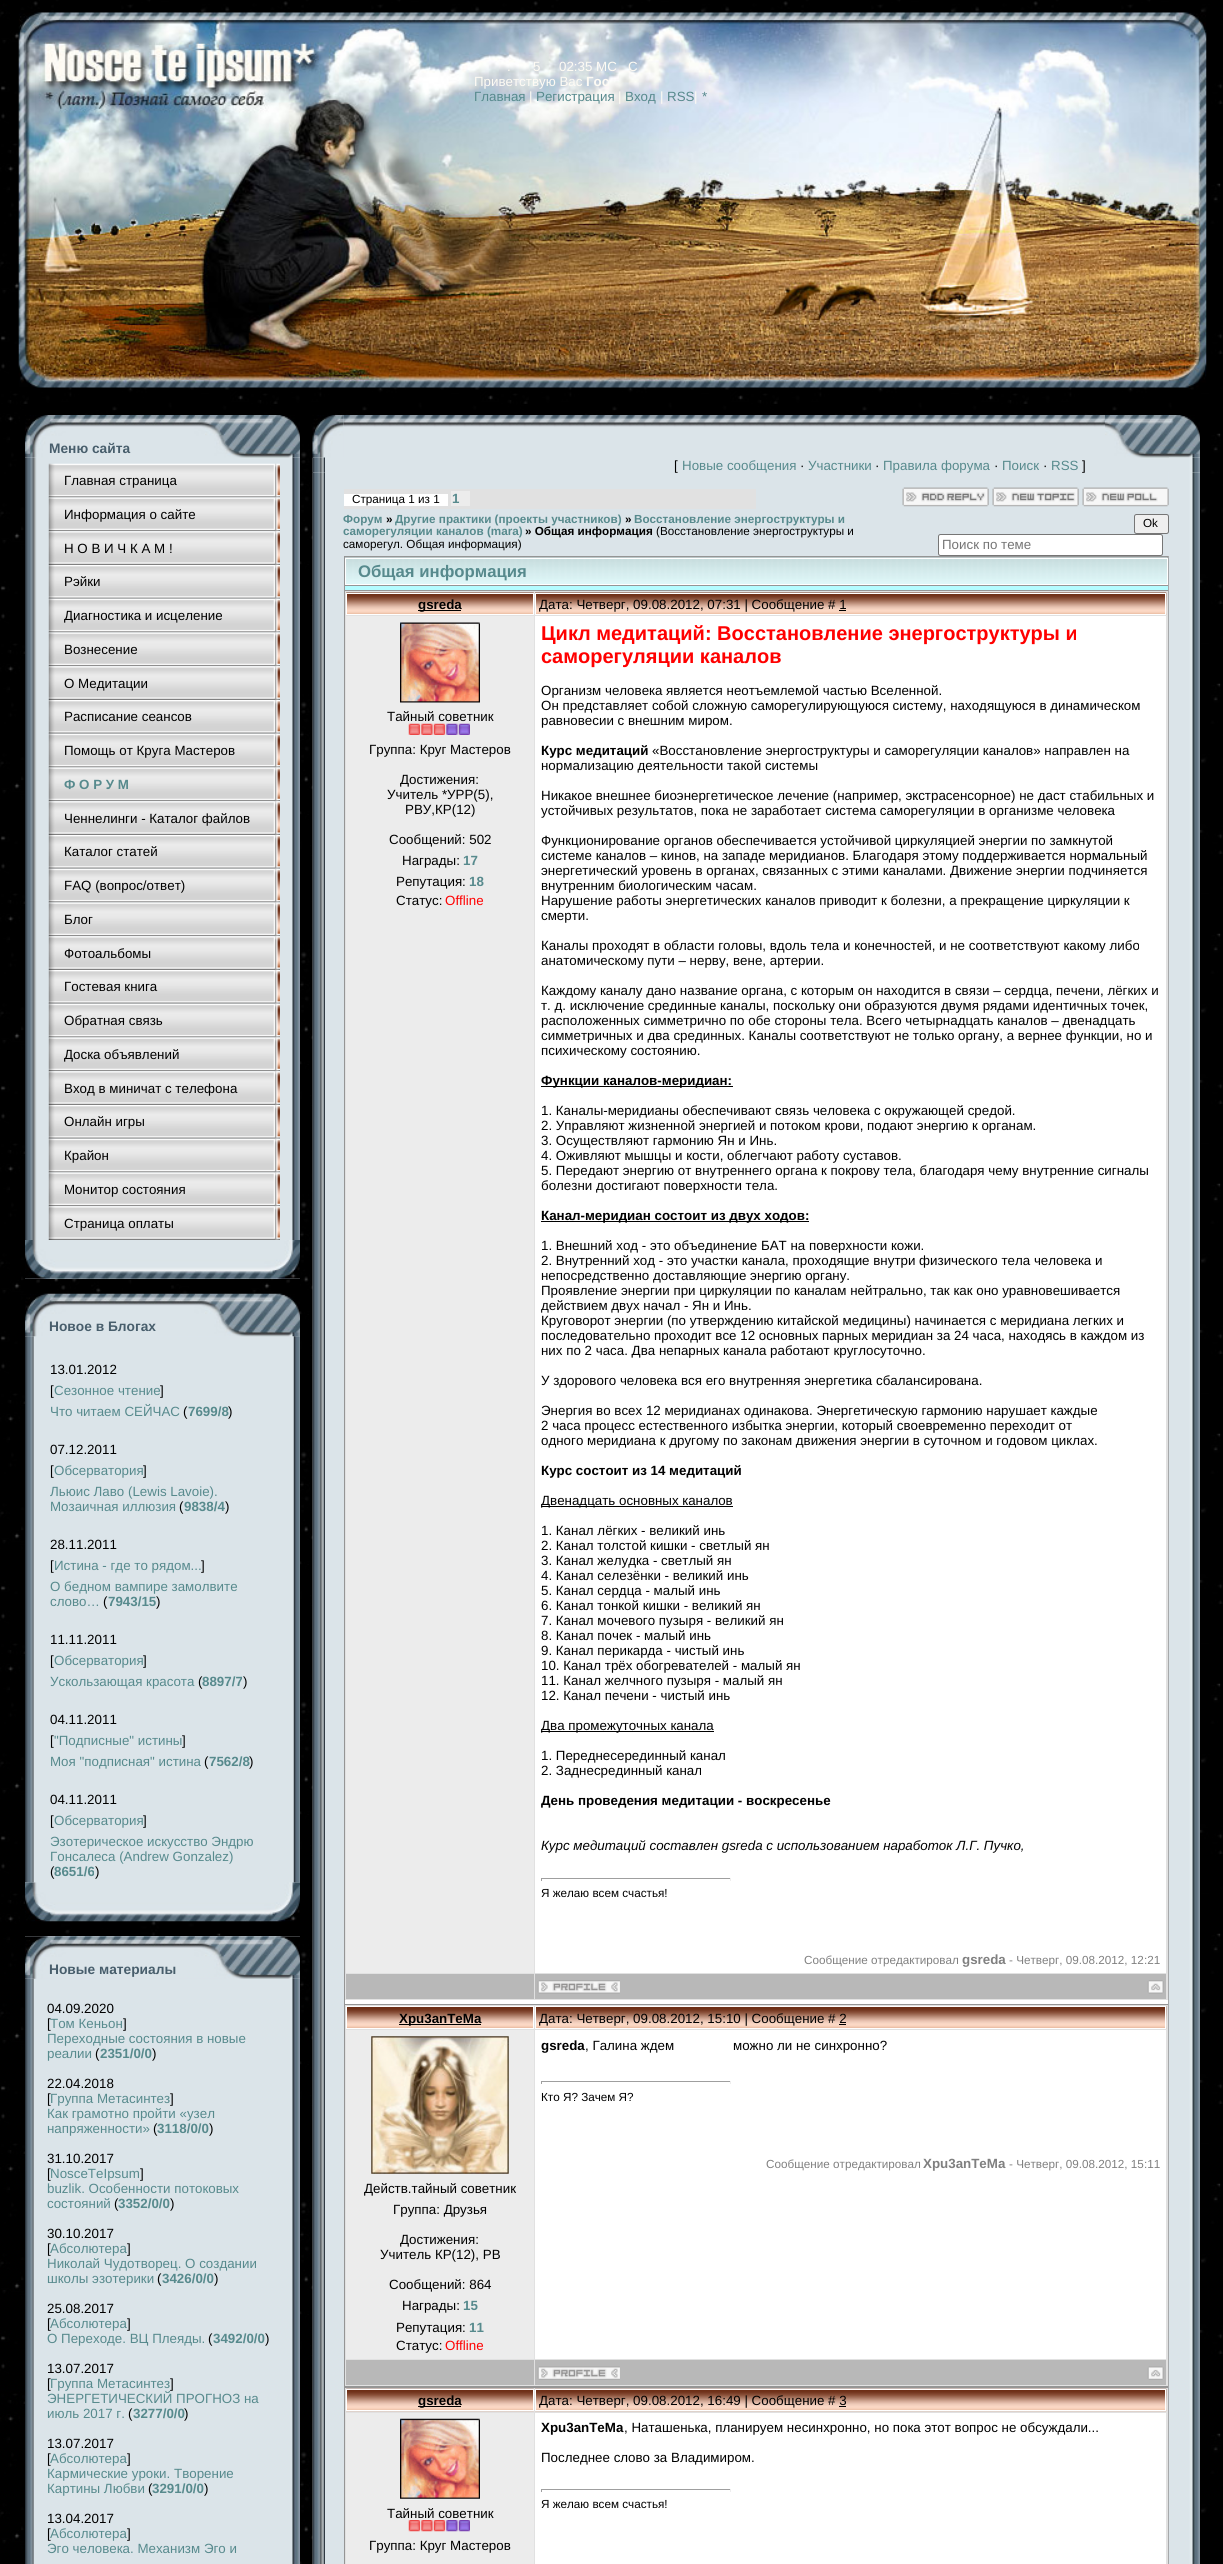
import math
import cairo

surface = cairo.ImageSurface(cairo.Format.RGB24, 1223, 2564)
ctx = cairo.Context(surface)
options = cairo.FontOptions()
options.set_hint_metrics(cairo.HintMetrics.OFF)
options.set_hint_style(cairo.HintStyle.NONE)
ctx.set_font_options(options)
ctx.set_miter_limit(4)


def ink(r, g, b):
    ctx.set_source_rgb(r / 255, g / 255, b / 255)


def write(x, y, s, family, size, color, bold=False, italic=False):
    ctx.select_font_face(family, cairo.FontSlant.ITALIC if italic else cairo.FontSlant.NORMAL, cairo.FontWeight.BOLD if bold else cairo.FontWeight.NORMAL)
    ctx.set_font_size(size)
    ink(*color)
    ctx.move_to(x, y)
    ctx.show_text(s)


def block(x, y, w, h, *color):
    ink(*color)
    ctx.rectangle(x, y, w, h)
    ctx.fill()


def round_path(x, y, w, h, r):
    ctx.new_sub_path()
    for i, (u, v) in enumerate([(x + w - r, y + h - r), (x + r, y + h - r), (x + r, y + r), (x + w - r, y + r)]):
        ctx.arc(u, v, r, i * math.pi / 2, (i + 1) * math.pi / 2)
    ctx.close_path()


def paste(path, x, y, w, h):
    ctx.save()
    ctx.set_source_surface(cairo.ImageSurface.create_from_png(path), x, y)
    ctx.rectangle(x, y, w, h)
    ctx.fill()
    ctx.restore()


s1 = dict(family="Liberation Sans", size=13.35, color=(254, 251, 244))
s2 = dict(family="Liberation Sans", size=13.35, color=(254, 251, 244), bold=True)
s3 = dict(family="Liberation Sans", size=13.35, color=(87, 138, 141))
s4 = dict(family="Liberation Sans", size=13.75, color=(72, 94, 108), bold=True)
s5 = dict(family="Liberation Sans", size=13.35, color=(0, 0, 0))
s6 = dict(family="Liberation Sans", size=13.35, color=(87, 138, 141), bold=True)
s7 = dict(family="Liberation Sans", size=11.7, color=(0, 0, 0))
s8 = dict(family="Liberation Sans", size=11.7, color=(87, 138, 141), bold=True)
s9 = dict(family="Liberation Sans", size=11.7, color=(0, 0, 0), bold=True)
s10 = dict(family="Liberation Sans", size=13.35, color=(117, 117, 117))
s11 = dict(family="Liberation Sans", size=16.75, color=(87, 138, 141), bold=True)
s12 = dict(family="Liberation Sans", size=13.35, color=(0, 0, 0), bold=True)
s13 = dict(family="Liberation Sans", size=13.35, color=(255, 0, 0))
s14 = dict(family="Liberation Sans", size=20, color=(255, 0, 0), bold=True)
s15 = dict(family="Liberation Sans", size=13.35, color=(0, 0, 0), italic=True)
s16 = dict(family="Liberation Sans", size=11.7, color=(128, 128, 128))
s17 = dict(family="Liberation Sans", size=13.35, color=(128, 128, 128), bold=True)

ink(255, 255, 255)
ctx.paint()
paste("pic1.png", 0, 0, 1223, 2564)
paste("pic2.png", 18, 12, 1189, 376)
write(507, 71, ".", **s1)
write(533, 71, "5     02:35 МС", **s1)
write(628, 71, "С", **s1)
write(474, 86, "Приветствую Вас", **s1)
write(586, 86, "Гос", **s2)
write(474, 101, "Главная", **s3)
write(529, 101, "|", **s1)
write(536, 101, "Регистрация", **s3)
write(618, 101, "|", **s1)
write(625, 101, "Вход", **s3)
write(660, 101, "|", **s1)
write(667, 101, "RSS", **s3)
write(694, 101, "|", **s1)
write(702, 101, "*", **s3)
block(25, 457, 275, 822, 219, 228, 233)
paste("pic3.png", 25, 415, 275, 43)
write(49, 453, "Меню сайта", **s4)
paste("pic4.png", 25, 457, 12, 783)
paste("pic5.png", 48, 463, 232, 35)
write(64, 485, "Главная страница", **s5)
paste("pic6.png", 48, 497, 232, 35)
write(64, 519, "Информация о сайте", **s5)
paste("pic7.png", 48, 531, 232, 34)
write(64, 553, "Н О В И Ч К А М !", **s5)
paste("pic8.png", 48, 565, 232, 34)
write(64, 586, "Рэйки", **s5)
paste("pic9.png", 48, 598, 232, 35)
write(64, 620, "Диагностика и исцеление", **s5)
paste("pic6.png", 48, 632, 232, 35)
write(64, 654, "Вознесение", **s5)
paste("pic7.png", 48, 666, 232, 34)
write(64, 688, "О Медитации", **s5)
paste("pic10.png", 48, 700, 232, 34)
write(64, 721, "Расписание сеансов", **s5)
paste("pic9.png", 48, 733, 232, 35)
write(64, 755, "Помощь от Круга Мастеров", **s5)
paste("pic6.png", 48, 767, 232, 35)
write(64, 789, "Ф О Р У М", **s6)
paste("pic7.png", 48, 801, 232, 34)
write(64, 823, "Ченнелинги - Каталог файлов", **s5)
paste("pic10.png", 48, 835, 232, 34)
write(64, 856, "Каталог статей", **s5)
paste("pic9.png", 48, 868, 232, 35)
write(64, 890, "FAQ (вопрос/ответ)", **s5)
paste("pic6.png", 48, 902, 232, 35)
write(64, 924, "Блог", **s5)
paste("pic7.png", 48, 936, 232, 34)
write(64, 958, "Фотоальбомы", **s5)
paste("pic10.png", 48, 970, 232, 34)
write(64, 991, "Гостевая книга", **s5)
paste("pic9.png", 48, 1003, 232, 35)
write(64, 1025, "Обратная связь", **s5)
paste("pic6.png", 48, 1037, 232, 35)
write(64, 1059, "Доска объявлений", **s5)
paste("pic7.png", 48, 1071, 232, 34)
write(64, 1093, "Вход в миничат с телефона", **s5)
paste("pic10.png", 48, 1105, 232, 34)
write(64, 1126, "Онлайн игры", **s5)
paste("pic9.png", 48, 1138, 232, 35)
write(64, 1160, "Крайон", **s5)
paste("pic11.png", 48, 1172, 232, 35)
write(64, 1194, "Монитор состояния", **s5)
paste("pic7.png", 48, 1206, 232, 34)
write(64, 1228, "Страница оплаты", **s5)
paste("pic12.png", 292, 457, 8, 783)
paste("pic13.png", 25, 1240, 275, 39)
block(25, 1336, 275, 547, 219, 228, 233)
paste("pic14.png", 25, 1293, 275, 44)
write(49, 1331, "Новое в Блогах", **s4)
paste("pic15.png", 25, 1336, 9, 547)
write(50, 1374, "13.01.2012", **s5)
write(50, 1395, "[", **s5)
write(54, 1395, "Сезонное чтение", **s3)
write(160, 1395, "]", **s5)
write(50, 1416, "Что читаем СЕЙЧАС", **s3)
write(183, 1416, "(", **s5)
write(188, 1416, "7699/8", **s6)
write(228, 1416, ")", **s5)
write(50, 1454, "07.12.2011", **s5)
write(50, 1475, "[", **s5)
write(54, 1475, "Обсерватория", **s3)
write(143, 1475, "]", **s5)
write(50, 1496, "Льюис Лаво (Lewis Lavoie).", **s3)
write(50, 1511, "Мозаичная иллюзия", **s3)
write(179, 1511, "(", **s5)
write(184, 1511, "9838/4", **s6)
write(225, 1511, ")", **s5)
write(50, 1549, "28.11.2011", **s5)
write(50, 1570, "[", **s5)
write(54, 1570, "Истина - где то рядом...", **s3)
write(201, 1570, "]", **s5)
write(50, 1591, "О бедном вампире замолвите", **s3)
write(50, 1606, "слово…", **s3)
write(103, 1606, "(", **s5)
write(108, 1606, "7943/15", **s6)
write(156, 1606, ")", **s5)
write(50, 1644, "11.11.2011", **s5)
write(50, 1665, "[", **s5)
write(54, 1665, "Обсерватория", **s3)
write(143, 1665, "]", **s5)
write(50, 1686, "Ускользающая красота", **s3)
write(198, 1686, "(", **s5)
write(202, 1686, "8897/7", **s6)
write(243, 1686, ")", **s5)
write(50, 1724, "04.11.2011", **s5)
write(50, 1745, "[", **s5)
write(54, 1745, "\"Подписные\" истины", **s3)
write(182, 1745, "]", **s5)
write(50, 1766, "Моя \"подписная\" истина", **s3)
write(204, 1766, "(", **s5)
write(209, 1766, "7562/8", **s6)
write(249, 1766, ")", **s5)
write(50, 1804, "04.11.2011", **s5)
write(50, 1825, "[", **s5)
write(54, 1825, "Обсерватория", **s3)
write(143, 1825, "]", **s5)
write(50, 1846, "Эзотерическое искусство Эндрю", **s3)
write(50, 1861, "Гонсалеса (Andrew Gonzalez)", **s3)
write(50, 1876, "(", **s5)
write(54, 1876, "8651/6", **s6)
write(95, 1876, ")", **s5)
paste("pic16.png", 293, 1336, 7, 547)
paste("pic17.png", 25, 1882, 275, 40)
block(25, 1936, 275, 628, 219, 228, 233)
paste("pic18.png", 25, 1936, 275, 43)
write(49, 1974, "Новые материалы", **s4)
paste("pic19.png", 25, 1978, 9, 586)
write(47, 2013, "04.09.2020", **s5)
write(47, 2028, "[", **s5)
write(50, 2028, "Том Кеньон", **s3)
write(123, 2028, "]", **s5)
write(47, 2043, "Переходные состояния в новые", **s3)
write(47, 2058, "реалии", **s3)
write(95, 2058, "(", **s5)
write(100, 2058, "2351/0/0", **s6)
write(152, 2058, ")", **s5)
write(47, 2088, "22.04.2018", **s5)
write(47, 2103, "[", **s5)
write(50, 2103, "Группа Метасинтез", **s3)
write(170, 2103, "]", **s5)
write(47, 2118, "Как грамотно пройти «узел", **s3)
write(47, 2133, "напряженности»", **s3)
write(153, 2133, "(", **s5)
write(157, 2133, "3118/0/0", **s6)
write(209, 2133, ")", **s5)
write(47, 2163, "31.10.2017", **s5)
write(47, 2178, "[", **s5)
write(50, 2178, "NosceTeIpsum", **s3)
write(140, 2178, "]", **s5)
write(47, 2193, "buzlik. Особенности потоковых", **s3)
write(47, 2208, "состояний", **s3)
write(114, 2208, "(", **s5)
write(118, 2208, "3352/0/0", **s6)
write(170, 2208, ")", **s5)
write(47, 2238, "30.10.2017", **s5)
write(47, 2253, "[", **s5)
write(50, 2253, "Абсолютера", **s3)
write(127, 2253, "]", **s5)
write(47, 2268, "Николай Чудотворец. О создании", **s3)
write(47, 2283, "школы эзотерики", **s3)
write(157, 2283, "(", **s5)
write(162, 2283, "3426/0/0", **s6)
write(214, 2283, ")", **s5)
write(47, 2313, "25.08.2017", **s5)
write(47, 2328, "[", **s5)
write(50, 2328, "Абсолютера", **s3)
write(127, 2328, "]", **s5)
write(47, 2343, "О Переходе. ВЦ Плеяды.", **s3)
write(208, 2343, "(", **s5)
write(213, 2343, "3492/0/0", **s6)
write(265, 2343, ")", **s5)
write(47, 2373, "13.07.2017", **s5)
write(47, 2388, "[", **s5)
write(50, 2388, "Группа Метасинтез", **s3)
write(170, 2388, "]", **s5)
write(47, 2403, "ЭНЕРГЕТИЧЕСКИЙ ПРОГНОЗ на", **s3)
write(47, 2418, "июль 2017 г.", **s3)
write(128, 2418, "(", **s5)
write(133, 2418, "3277/0/0", **s6)
write(184, 2418, ")", **s5)
write(47, 2448, "13.07.2017", **s5)
write(47, 2463, "[", **s5)
write(50, 2463, "Абсолютера", **s3)
write(127, 2463, "]", **s5)
write(47, 2478, "Кармические уроки. Творение", **s3)
write(47, 2493, "Картины Любви", **s3)
write(148, 2493, "(", **s5)
write(152, 2493, "3291/0/0", **s6)
write(204, 2493, ")", **s5)
write(47, 2523, "13.04.2017", **s5)
write(47, 2538, "[", **s5)
write(50, 2538, "Абсолютера", **s3)
write(127, 2538, "]", **s5)
write(47, 2553, "Эго человека. Механизм Эго и", **s3)
paste("pic20.png", 292, 1978, 8, 586)
block(313, 415, 887, 2149, 219, 228, 233)
paste("pic21.png", 312, 415, 32, 43)
paste("pic22.png", 343, 415, 762, 12)
paste("pic23.png", 1105, 415, 95, 43)
paste("pic24.png", 312, 457, 13, 16)
write(674, 470, "[", **s5)
write(682, 470, "Новые сообщения", **s3)
write(800, 470, "·", **s5)
write(808, 470, "Участники", **s3)
write(875, 470, "·", **s5)
write(883, 470, "Правила форума", **s3)
write(994, 470, "·", **s5)
write(1002, 470, "Поиск", **s3)
write(1043, 470, "·", **s5)
write(1051, 470, "RSS", **s3)
write(1082, 470, "]", **s5)
paste("pic25.png", 1169, 457, 31, 16)
paste("pic26.png", 312, 472, 13, 2092)
block(344, 489, 412, 20, 225, 225, 225)
block(344, 494, 104, 12, 255, 255, 255)
write(352, 503, "Страница 1 из 1", **s7)
block(451, 491, 19, 15, 236, 236, 236)
write(452, 503, "1", **s6)
paste("pic27.png", 902, 487, 87, 20)
paste("pic28.png", 992, 487, 87, 20)
block(344, 556, 825, 2008, 149, 149, 149)
paste("pic46.png", 1168, 472, 32, 2092)
paste("pic29.png", 1082, 487, 87, 20)
write(343, 523, "Форум", **s8)
write(386, 523, "»", **s9)
write(395, 523, "Другие практики (проекты участников)", **s8)
write(625, 523, "»", **s9)
write(634, 523, "Восстановление энергоструктуры и", **s8)
write(343, 535, "саморегуляции каналов (mara)", **s8)
write(525, 535, "» Общая информация", **s9)
write(656, 535, "(Восстановление энергоструктуры и", **s7)
write(343, 548, "саморегул. Общая информация)", **s7)
ink(239, 239, 239)
round_path(1134.5, 514.5, 34, 19, 2)
ctx.fill_preserve()
ink(118, 118, 118)
ctx.set_line_width(1)
ctx.stroke()
write(1143, 527, "Ok", **s7)
ink(255, 255, 255)
round_path(938.5, 534.5, 224, 21, 2)
ctx.fill_preserve()
ink(118, 118, 118)
ctx.stroke()
write(942, 549, "Поиск по теме", **s10)
paste("pic30.png", 345, 557, 823, 27)
ctx.rectangle(345.5, 558.5, 822, 26)
ink(255, 255, 255)
ctx.stroke()
write(358, 577, "Общая информация", **s11)
block(345, 586, 823, 4, 180, 252, 255)
block(345, 2000, 823, 4, 255, 255, 255)
block(345, 591, 823, 1409, 225, 225, 225)
paste("pic31.png", 346, 592, 188, 22)
ctx.rectangle(346.5, 593.5, 187, 21)
ink(255, 255, 255)
ctx.stroke()
block(418, 610, 43, 1, 0, 0, 0)
write(418, 609, "gsreda", **s12)
paste("pic32.png", 535, 592, 632, 23)
ctx.rectangle(535.5, 593.5, 630, 21)
ink(255, 255, 255)
ctx.stroke()
write(539, 609, "Дата: Четверг, 09.08.2012, 07:31 | Сообщение # 1", **s5)
block(839, 610, 7, 1, 0, 0, 0)
block(346, 616, 188, 1357, 236, 236, 236)
paste("pic33.png", 400, 622, 80, 81)
write(387, 721, "Тайный советник", **s5)
paste("pic34.png", 408, 723, 62, 12)
write(369, 754, "Группа: Круг Мастеров", **s5)
write(400, 784, "Достижения:", **s5)
write(387, 799, "Учитель *УРР(5),", **s5)
write(405, 814, "РВУ,КР(12)", **s5)
write(389, 844, "Сообщений: 502", **s5)
write(402, 865, "Награды:", **s5)
write(463, 865, "17", **s6)
write(396, 886, "Репутация:", **s5)
write(469, 886, "18", **s6)
write(396, 905, "Статус:", **s5)
write(445, 905, "Offline", **s13)
block(535, 616, 631, 1357, 255, 255, 255)
write(541, 640, "Цикл медитаций: Восстановление энергоструктуры и", **s14)
write(541, 663, "саморегуляции каналов", **s14)
write(541, 695, "Организм человека является неотъемлемой частью Вселенной.", **s5)
write(541, 710, "Он представляет собой сложную саморегулирующуюся систему, находящуюся в динамическом", **s5)
write(541, 725, "равновесии с внешним миром.", **s5)
write(541, 755, "Курс медитаций", **s12)
write(652, 755, "«Восстановление энергоструктуры и саморегуляции каналов» направлен на", **s5)
write(541, 770, "нормализацию деятельности такой системы", **s5)
write(541, 800, "Никакое внешнее биоэнергетическое лечение (например, экстрасенсорное) не даст стабильных и", **s5)
write(541, 815, "устойчивых результатов, пока не заработает система саморегуляции в организме человека", **s5)
write(541, 845, "Функционирование органов обеспечивается устойчивой циркуляцией энергии по замкнутой", **s5)
write(541, 860, "системе каналов – кинов, на западе меридианов. Благодаря этому поддерживается нормальный", **s5)
write(541, 875, "энергетический уровень в органах, связанных с этими каналами. Движение энергии подчиняется", **s5)
write(541, 890, "внутренним биологическим часам.", **s5)
write(541, 905, "Нарушение работы энергетических каналов приводит к болезни, а прекращение циркуляции к", **s5)
write(541, 920, "смерти.", **s5)
write(541, 950, "Каналы проходят в области головы, вдоль тела и конечностей, и не соответствуют какому либо", **s5)
write(541, 965, "анатомическому пути – нерву, вене, артерии.", **s5)
write(541, 995, "Каждому каналу дано название органа, с которым он находится в связи – сердца, печени, лёгких и", **s5)
write(541, 1010, "т. д. исключение срединные каналы, поскольку они образуются двумя рядами идентичных точек,", **s5)
write(541, 1025, "расположенных симметрично по обе стороны тела. Всего четырнадцать каналов – двенадцать", **s5)
write(541, 1040, "симметричных и два срединных. Каналы соответствуют не только органу, а вернее функции, но и", **s5)
write(541, 1055, "психическому состоянию.", **s5)
block(541, 1086, 192, 1, 0, 0, 0)
write(541, 1085, "Функции каналов-меридиан:", **s12)
write(541, 1115, "1. Каналы-меридианы обеспечивают связь человека с окружающей средой.", **s5)
write(541, 1130, "2. Управляют жизненной энергией и потоком крови, подают энергию к органам.", **s5)
write(541, 1145, "3. Осуществляют гармонию Ян и Инь.", **s5)
write(541, 1160, "4. Оживляют мышцы и кости, облегчают работу суставов.", **s5)
write(541, 1175, "5. Передают энергию от внутреннего органа к покрову тела, благодаря чему внутренние сигналы", **s5)
write(541, 1190, "болезни достигают поверхности тела.", **s5)
block(541, 1221, 268, 1, 0, 0, 0)
write(541, 1220, "Канал-меридиан состоит из двух ходов:", **s12)
write(541, 1250, "1. Внешний ход - это объединение БАТ на поверхности кожи.", **s5)
write(541, 1265, "2. Внутренний ход - это участки канала, проходящие внутри физического тела человека и", **s5)
write(541, 1280, "непосредственно доставляющие энергию органу.", **s5)
write(541, 1295, "Проявление энергии при циркуляции по каналам нейтрально, так как оно уравновешивается", **s5)
write(541, 1310, "действием двух начал - Ян и Инь.", **s5)
write(541, 1325, "Круговорот энергии (по утверждению китайской медицины) начинается с меридиана легких и", **s5)
write(541, 1340, "последовательно проходит все 12 основных парных меридиан за 24 часа, находясь в каждом из", **s5)
write(541, 1355, "них по 2 часа. Два непарных канала работают круглосуточно.", **s5)
write(541, 1385, "У здорового человека вся его внутренняя энергетика сбалансирована.", **s5)
write(541, 1415, "Энергия во всех 12 меридианах одинакова. Энергетическую гармонию нарушает каждые", **s5)
write(541, 1430, "2 часа процесс естественного избытка энергии, который своевременно переходит от", **s5)
write(541, 1445, "одного меридиана к другому по законам движения энергии в суточном и годовом циклах.", **s5)
write(541, 1475, "Курс состоит из 14 медитаций", **s12)
block(541, 1506, 192, 1, 0, 0, 0)
write(541, 1505, "Двенадцать основных каналов", **s5)
write(541, 1535, "1. Канал лёгких - великий инь", **s5)
write(541, 1550, "2. Канал толстой кишки - светлый ян", **s5)
write(541, 1565, "3. Канал желудка - светлый ян", **s5)
write(541, 1580, "4. Канал селезёнки - великий инь", **s5)
write(541, 1595, "5. Канал сердца - малый инь", **s5)
write(541, 1610, "6. Канал тонкой кишки - великий ян", **s5)
write(541, 1625, "7. Канал мочевого пузыря - великий ян", **s5)
write(541, 1640, "8. Канал почек - малый инь", **s5)
write(541, 1655, "9. Канал перикарда - чистый инь", **s5)
write(541, 1670, "10. Канал трёх обогревателей - малый ян", **s5)
write(541, 1685, "11. Канал желчного пузыря - малый ян", **s5)
write(541, 1700, "12. Канал печени - чистый инь", **s5)
block(541, 1731, 173, 1, 0, 0, 0)
write(541, 1730, "Два промежуточных канала", **s5)
write(541, 1760, "1. Переднесерединный канал", **s5)
write(541, 1775, "2. Заднесрединный канал", **s5)
write(541, 1805, "День проведения медитации - воскресенье", **s12)
write(541, 1850, "Курс медитаций составлен gsreda с использованием наработок Л.Г. Пучко,", **s15)
block(541, 1878, 190, 1, 159, 159, 159)
block(730, 1878, 1, 3, 238, 238, 238)
block(541, 1878, 1, 3, 159, 159, 159)
write(541, 1897, "Я желаю всем счастья!", **s7)
write(804, 1964, "Сообщение отредактировал", **s16)
write(962, 1964, "gsreda", **s17)
write(1009, 1964, "- Четверг, 09.08.2012, 12:21", **s16)
block(346, 1974, 188, 25, 184, 184, 184)
block(535, 1974, 631, 25, 184, 184, 184)
paste("pic35.png", 537, 1980, 83, 14)
paste("pic36.png", 1147, 1980, 17, 14)
block(345, 2005, 823, 381, 225, 225, 225)
paste("pic37.png", 347, 2007, 186, 21)
ctx.rectangle(346.5, 2006.5, 187, 22)
ink(255, 255, 255)
ctx.stroke()
block(399, 2024, 82, 1, 0, 0, 0)
write(399, 2023, "Xpu3anTeMa", **s12)
paste("pic38.png", 536, 2006, 631, 23)
ctx.rectangle(535.5, 2006.5, 630, 22)
ink(255, 255, 255)
ctx.stroke()
write(539, 2023, "Дата: Четверг, 09.08.2012, 15:10 | Сообщение # 2", **s5)
block(839, 2024, 7, 1, 0, 0, 0)
block(535, 2030, 631, 329, 255, 255, 255)
write(541, 2050, "gsreda", **s12)
write(585, 2050, ", Галина ждем", **s5)
write(733, 2050, "можно ли не синхронно?", **s5)
block(541, 2081, 190, 1, 159, 159, 159)
block(730, 2081, 1, 3, 238, 238, 238)
block(541, 2081, 1, 3, 159, 159, 159)
write(541, 2101, "Кто Я? Зачем Я?", **s7)
write(766, 2168, "Сообщение отредактировал", **s16)
write(923, 2168, "Xpu3anTeMa", **s17)
write(1009, 2168, "- Четверг, 09.08.2012, 15:11", **s16)
block(346, 2030, 188, 329, 236, 236, 236)
paste("pic39.png", 371, 2036, 138, 138)
write(364, 2193, "Действ.тайный советник", **s5)
write(393, 2214, "Группа: Друзья", **s5)
write(400, 2244, "Достижения:", **s5)
write(380, 2259, "Учитель КР(12), РВ", **s5)
write(389, 2289, "Сообщений: 864", **s5)
write(402, 2310, "Награды:", **s5)
write(463, 2310, "15", **s6)
write(396, 2332, "Репутация:", **s5)
write(469, 2332, "11", **s6)
write(396, 2350, "Статус:", **s5)
write(445, 2350, "Offline", **s13)
block(346, 2360, 188, 25, 184, 184, 184)
block(535, 2360, 631, 25, 184, 184, 184)
paste("pic40.png", 537, 2366, 83, 14)
paste("pic41.png", 1147, 2366, 17, 14)
block(345, 2388, 823, 176, 225, 225, 225)
paste("pic42.png", 346, 2388, 188, 24)
ctx.rectangle(346.5, 2389.5, 187, 21)
ink(255, 255, 255)
ctx.stroke()
block(418, 2406, 43, 1, 0, 0, 0)
write(418, 2405, "gsreda", **s12)
paste("pic43.png", 535, 2388, 632, 24)
ctx.rectangle(535.5, 2389.5, 630, 21)
ink(255, 255, 255)
ctx.stroke()
write(539, 2405, "Дата: Четверг, 09.08.2012, 16:49 | Сообщение # 3", **s5)
block(839, 2406, 7, 1, 0, 0, 0)
block(535, 2413, 631, 151, 255, 255, 255)
write(541, 2432, "Xpu3anTeMa", **s12)
write(624, 2432, ", Наташенька, планируем несинхронно, но пока этот вопрос не обсуждали...", **s5)
write(541, 2462, "Последнее слово за Владимиром.", **s5)
block(541, 2489, 190, 1, 159, 159, 159)
block(730, 2489, 1, 3, 238, 238, 238)
block(541, 2489, 1, 3, 159, 159, 159)
write(541, 2508, "Я желаю всем счастья!", **s7)
block(346, 2413, 188, 151, 236, 236, 236)
paste("pic44.png", 400, 2418, 80, 81)
write(387, 2518, "Тайный советник", **s5)
paste("pic45.png", 408, 2520, 62, 12)
write(369, 2550, "Группа: Круг Мастеров", **s5)
surface.write_to_png("screenshot.png")
